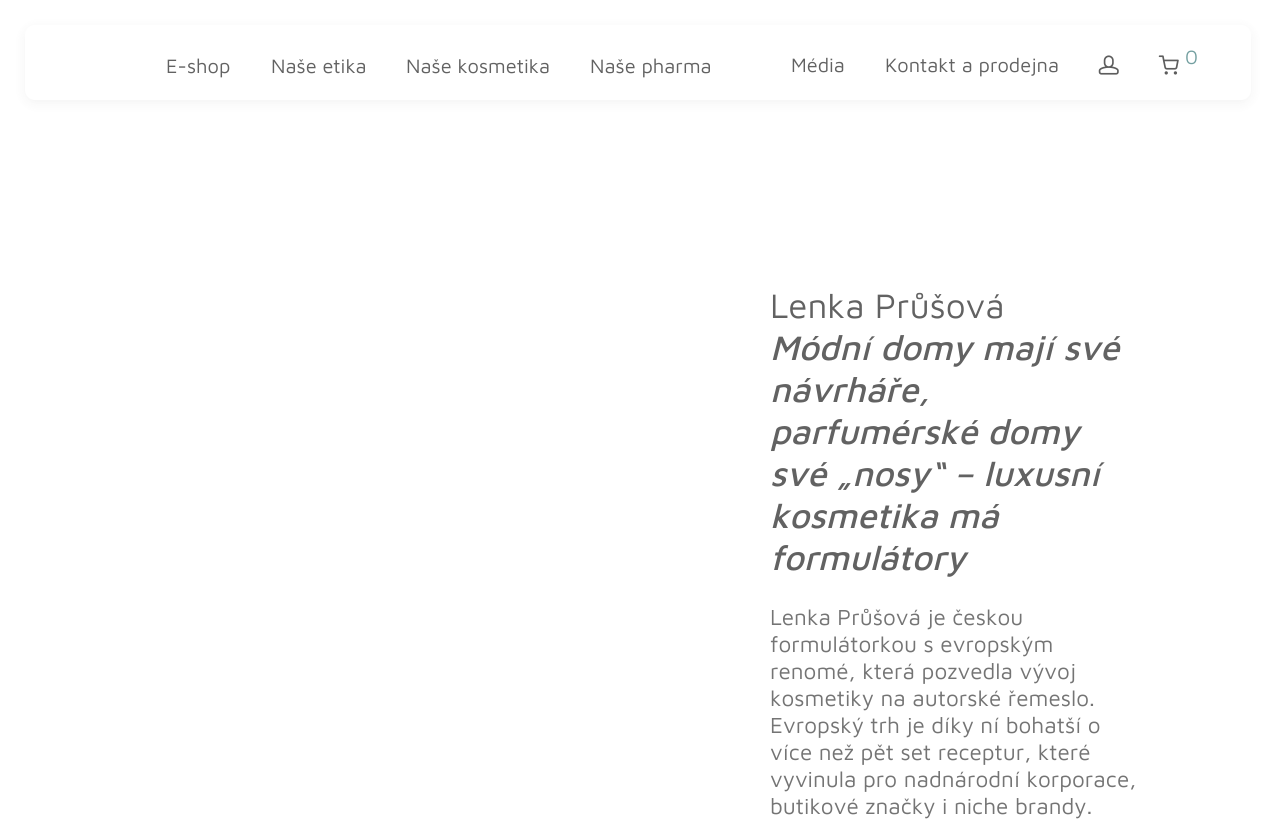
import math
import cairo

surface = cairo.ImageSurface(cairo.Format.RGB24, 1276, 826)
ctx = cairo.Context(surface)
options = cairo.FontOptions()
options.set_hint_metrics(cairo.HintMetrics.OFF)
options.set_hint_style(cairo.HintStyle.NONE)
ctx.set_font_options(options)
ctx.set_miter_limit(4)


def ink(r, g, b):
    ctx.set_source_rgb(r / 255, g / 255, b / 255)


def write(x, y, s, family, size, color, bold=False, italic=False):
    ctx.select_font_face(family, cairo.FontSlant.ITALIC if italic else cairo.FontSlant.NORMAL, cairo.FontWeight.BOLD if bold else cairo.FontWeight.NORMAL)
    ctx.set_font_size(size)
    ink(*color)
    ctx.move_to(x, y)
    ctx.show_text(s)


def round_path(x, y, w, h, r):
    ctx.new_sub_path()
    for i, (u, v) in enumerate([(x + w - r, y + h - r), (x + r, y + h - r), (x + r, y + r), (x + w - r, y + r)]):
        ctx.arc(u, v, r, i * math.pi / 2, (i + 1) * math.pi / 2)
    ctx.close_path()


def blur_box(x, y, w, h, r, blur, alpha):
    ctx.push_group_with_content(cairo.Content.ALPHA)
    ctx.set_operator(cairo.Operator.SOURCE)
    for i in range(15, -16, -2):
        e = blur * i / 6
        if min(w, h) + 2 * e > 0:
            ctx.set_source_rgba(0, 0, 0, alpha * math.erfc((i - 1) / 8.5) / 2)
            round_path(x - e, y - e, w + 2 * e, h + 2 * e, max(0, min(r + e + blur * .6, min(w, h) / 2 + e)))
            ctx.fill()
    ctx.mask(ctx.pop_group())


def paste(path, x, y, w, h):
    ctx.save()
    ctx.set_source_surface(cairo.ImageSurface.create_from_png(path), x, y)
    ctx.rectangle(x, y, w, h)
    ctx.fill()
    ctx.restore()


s1 = dict(family="Maven Pro", size=20, color=(98, 98, 98))
s2 = dict(family="Maven Pro", size=20, color=(115, 159, 160))
s3 = dict(family="Maven Pro", size=35, color=(98, 98, 98))
s4 = dict(family="Maven Pro Medium", size=35, color=(98, 98, 98), italic=True)
s5 = dict(family="Maven Pro", size=22.5, color=(116, 116, 116))

ink(255, 255, 255)
ctx.paint()
ink(0, 0, 0)
blur_box(25, 28, 1226, 75, 10, 6, 0.05)
ink(255, 255, 255)
round_path(25, 25, 1226, 75, 10)
ctx.fill()
write(166, 73, "E-shop", **s1)
write(271, 73, "Naše etika", **s1)
write(406, 73, "Naše kosmetika", **s1)
write(590, 73, "Naše pharma", **s1)
write(791, 72, "Média", **s1)
write(885, 72, "Kontakt a prodejna", **s1)
paste("pic1.png", 1098, 55, 21, 20)
paste("pic2.png", 1158, 55, 21, 20)
write(1185, 64, "0", **s2)
write(770, 318, "Lenka Průšová", **s3)
write(770, 360, "Módní domy mají své", **s4)
write(770, 402, "návrháře,", **s4)
write(770, 444, "parfumérské domy", **s4)
write(770, 486, "své „nosy“ – luxusní", **s4)
write(770, 528, "kosmetika má", **s4)
write(770, 570, "formulátory", **s4)
write(770, 625, "Lenka Průšová je českou", **s5)
write(770, 652, "formulátorkou s evropským", **s5)
write(770, 679, "renomé, která pozvedla vývoj", **s5)
write(770, 706, "kosmetiky na autorské řemeslo.", **s5)
write(770, 733, "Evropský trh je díky ní bohatší o", **s5)
write(770, 760, "více než pět set receptur, které", **s5)
write(770, 787, "vyvinula pro nadnárodní korporace,", **s5)
write(770, 814, "butikové značky i niche brandy.", **s5)
surface.write_to_png("screenshot.png")
